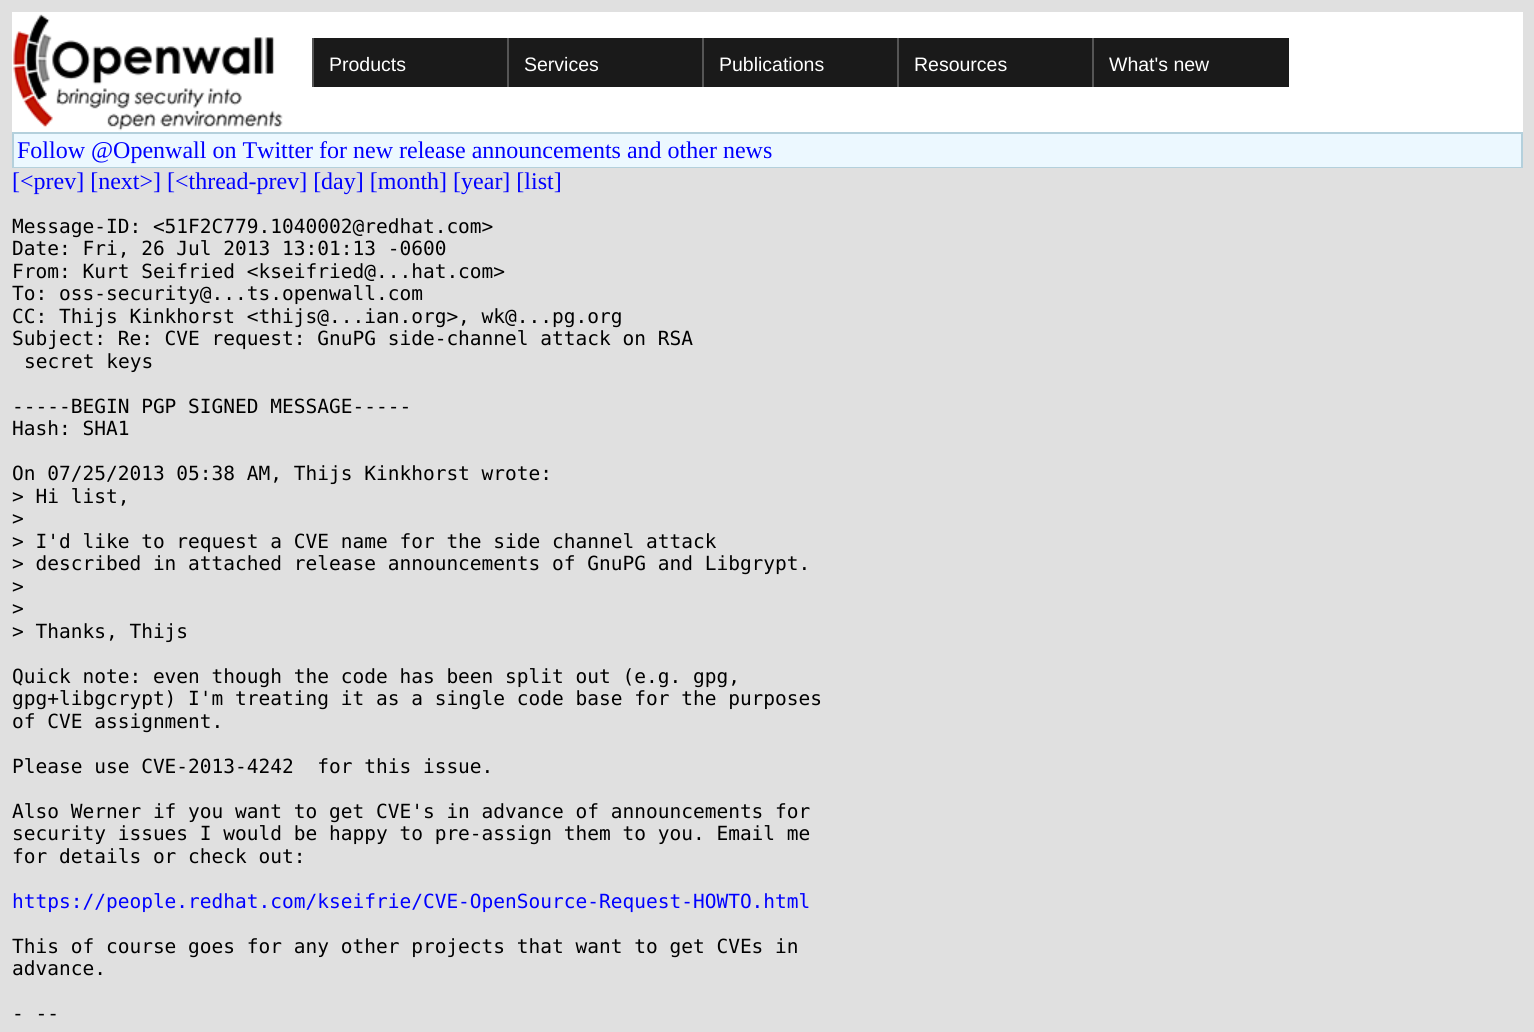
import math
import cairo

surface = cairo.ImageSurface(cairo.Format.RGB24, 1534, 1032)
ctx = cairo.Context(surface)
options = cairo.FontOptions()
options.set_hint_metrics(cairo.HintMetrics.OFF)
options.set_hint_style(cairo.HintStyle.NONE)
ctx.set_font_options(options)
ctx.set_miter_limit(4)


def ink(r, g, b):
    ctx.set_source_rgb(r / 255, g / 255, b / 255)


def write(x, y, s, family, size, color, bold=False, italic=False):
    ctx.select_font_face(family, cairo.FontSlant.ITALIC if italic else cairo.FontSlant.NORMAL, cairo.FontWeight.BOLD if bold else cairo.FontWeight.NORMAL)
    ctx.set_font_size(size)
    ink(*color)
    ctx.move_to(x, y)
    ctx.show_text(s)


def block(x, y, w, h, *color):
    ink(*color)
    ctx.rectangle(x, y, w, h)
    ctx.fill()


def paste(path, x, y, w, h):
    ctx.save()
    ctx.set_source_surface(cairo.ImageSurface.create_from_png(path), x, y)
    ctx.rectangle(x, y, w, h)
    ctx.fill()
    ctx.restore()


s1 = dict(family="Liberation Sans", size=19.5, color=(255, 255, 255))
s2 = dict(family="Liberation Serif", size=24, color=(0, 0, 255))
s3 = dict(family="DejaVu Sans Mono", size=19.5, color=(0, 0, 0))
s4 = dict(family="DejaVu Sans Mono", size=19.5, color=(0, 0, 255))

ink(224, 224, 224)
ctx.paint()
block(12, 12, 1511, 120, 255, 255, 255)
paste("pic1.png", 13, 14, 270, 117)
block(314, 38, 193, 49, 26, 26, 26)
block(312, 38, 2, 49, 85, 85, 85)
write(329, 71, "Products", **s1)
block(509, 38, 193, 49, 26, 26, 26)
block(507, 38, 2, 49, 85, 85, 85)
write(524, 71, "Services", **s1)
block(704, 38, 193, 49, 26, 26, 26)
block(702, 38, 2, 49, 85, 85, 85)
write(719, 71, "Publications", **s1)
block(899, 38, 193, 49, 26, 26, 26)
block(897, 38, 2, 49, 85, 85, 85)
write(914, 71, "Resources", **s1)
block(1094, 38, 195, 49, 26, 26, 26)
block(1092, 38, 2, 49, 85, 85, 85)
write(1109, 71, "What's new", **s1)
block(12, 132, 1511, 36, 180, 208, 220)
block(14, 134, 1507, 33, 236, 248, 255)
write(17, 158, "Follow @Openwall on Twitter for new release announcements and other news", **s2)
write(12, 189, "[<prev] [next>] [<thread-prev] [day] [month] [year] [list]", **s2)
write(12, 233, "Message-ID: <51F2C779.1040002@redhat.com>", **s3)
write(12, 255, "Date: Fri, 26 Jul 2013 13:01:13 -0600", **s3)
write(12, 278, "From: Kurt Seifried <kseifried@...hat.com>", **s3)
write(12, 300, "To: oss-security@...ts.openwall.com", **s3)
write(12, 323, "CC: Thijs Kinkhorst <thijs@...ian.org>, wk@...pg.org", **s3)
write(12, 345, "Subject: Re: CVE request: GnuPG side-channel attack on RSA", **s3)
write(24, 368, "secret keys", **s3)
write(12, 413, "-----BEGIN PGP SIGNED MESSAGE-----", **s3)
write(12, 435, "Hash: SHA1", **s3)
write(12, 480, "On 07/25/2013 05:38 AM, Thijs Kinkhorst wrote:", **s3)
write(12, 503, "> Hi list,", **s3)
write(12, 525, ">", **s3)
write(12, 548, "> I'd like to request a CVE name for the side channel attack", **s3)
write(12, 570, "> described in attached release announcements of GnuPG and Libgrypt.", **s3)
write(12, 593, ">", **s3)
write(12, 615, ">", **s3)
write(12, 638, "> Thanks, Thijs", **s3)
write(12, 683, "Quick note: even though the code has been split out (e.g. gpg,", **s3)
write(12, 705, "gpg+libgcrypt) I'm treating it as a single code base for the purposes", **s3)
write(12, 728, "of CVE assignment.", **s3)
write(12, 773, "Please use CVE-2013-4242  for this issue.", **s3)
write(12, 818, "Also Werner if you want to get CVE's in advance of announcements for", **s3)
write(12, 840, "security issues I would be happy to pre-assign them to you. Email me", **s3)
write(12, 863, "for details or check out:", **s3)
write(12, 908, "https://people.redhat.com/kseifrie/CVE-OpenSource-Request-HOWTO.html", **s4)
write(12, 953, "This of course goes for any other projects that want to get CVEs in", **s3)
write(12, 975, "advance.", **s3)
write(12, 1020, "- --", **s3)
surface.write_to_png("screenshot.png")
